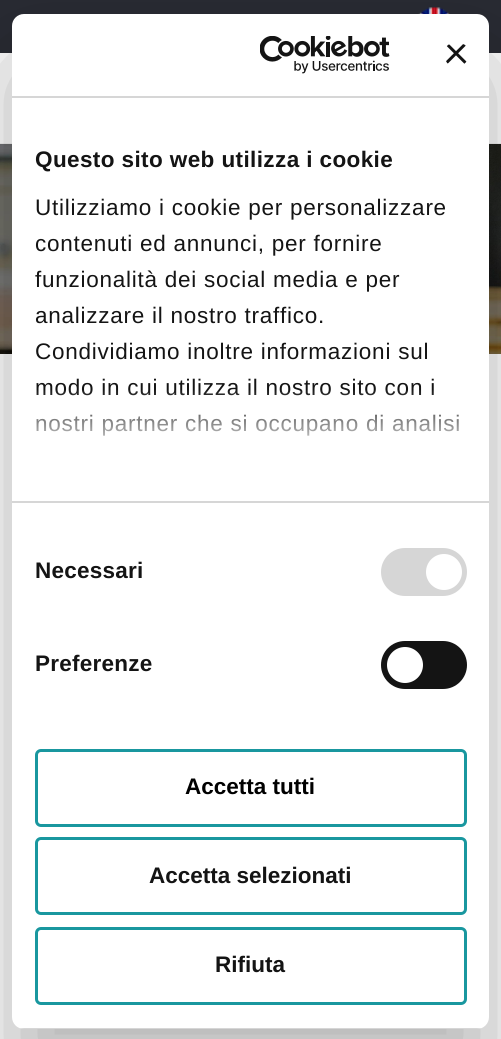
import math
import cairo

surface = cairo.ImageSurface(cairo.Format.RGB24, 501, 1039)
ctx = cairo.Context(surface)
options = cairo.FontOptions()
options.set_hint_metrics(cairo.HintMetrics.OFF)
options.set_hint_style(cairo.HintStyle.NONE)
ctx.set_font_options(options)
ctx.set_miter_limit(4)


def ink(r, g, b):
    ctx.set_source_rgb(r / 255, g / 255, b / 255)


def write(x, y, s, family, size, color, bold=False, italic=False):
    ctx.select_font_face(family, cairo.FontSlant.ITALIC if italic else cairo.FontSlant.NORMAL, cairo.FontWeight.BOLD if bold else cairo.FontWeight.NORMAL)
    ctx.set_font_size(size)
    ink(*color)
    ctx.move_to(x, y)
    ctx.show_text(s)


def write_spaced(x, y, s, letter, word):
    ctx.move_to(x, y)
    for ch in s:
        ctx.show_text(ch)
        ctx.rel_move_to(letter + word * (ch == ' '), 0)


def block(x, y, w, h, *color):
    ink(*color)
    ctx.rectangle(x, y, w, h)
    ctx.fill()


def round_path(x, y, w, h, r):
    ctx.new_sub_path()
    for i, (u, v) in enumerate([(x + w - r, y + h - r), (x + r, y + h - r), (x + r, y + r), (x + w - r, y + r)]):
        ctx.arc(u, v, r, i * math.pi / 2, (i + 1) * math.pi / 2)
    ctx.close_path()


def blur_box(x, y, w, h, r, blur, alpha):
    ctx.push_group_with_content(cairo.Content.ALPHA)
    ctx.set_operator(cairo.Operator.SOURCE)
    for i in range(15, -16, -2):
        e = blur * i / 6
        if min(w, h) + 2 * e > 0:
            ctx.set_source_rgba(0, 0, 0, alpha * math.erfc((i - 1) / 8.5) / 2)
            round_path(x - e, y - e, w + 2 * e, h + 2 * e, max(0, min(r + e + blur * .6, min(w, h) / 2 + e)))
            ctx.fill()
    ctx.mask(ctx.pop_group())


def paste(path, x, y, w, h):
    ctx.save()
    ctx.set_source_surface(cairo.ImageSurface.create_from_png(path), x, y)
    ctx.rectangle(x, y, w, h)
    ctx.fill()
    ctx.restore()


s1 = dict(family="Liberation Sans", size=22.5, color=(0, 0, 0), bold=True)
s2 = dict(family="Liberation Sans", size=22.5, color=(20, 20, 20), bold=True)

ink(255, 255, 255)
ctx.paint()
block(0, 0, 501, 53, 41, 43, 51)
paste("pic1.png", 418, 7, 32, 7)
block(0, 143, 501, 1, 242, 242, 242)
paste("pic2.png", 0, 144, 501, 210)
ink(0, 0, 0)
blur_box(12, 62, 477, 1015, 12, 51, 0.3)
ink(255, 255, 255)
round_path(12, 14, 477, 1015, 12)
ctx.fill()
block(12, 96, 477, 2, 214, 214, 214)
paste("pic3.png", 260, 36, 130, 38)
paste("pic4.png", 446, 44, 21, 20)
block(12, 501, 477, 2, 214, 214, 214)
ctx.select_font_face("Liberation Sans", cairo.FontSlant.NORMAL, cairo.FontWeight.BOLD)
ctx.set_font_size(22.5)
ink(20, 20, 20)
write_spaced(35, 167, "Questo sito web utilizza i cookie", 0.4, 0)
ctx.select_font_face("Liberation Sans")
write_spaced(35, 215, "Utilizziamo i cookie per personalizzare", 0.75, 0)
write_spaced(35, 251, "contenuti ed annunci, per fornire", 0.75, 0)
write_spaced(35, 287, "funzionalità dei social media e per", 0.75, 0)
write_spaced(35, 323, "analizzare il nostro traffico.", 0.75, 0)
write_spaced(35, 359, "Condividiamo inoltre informazioni sul", 0.75, 0)
write_spaced(35, 395, "modo in cui utilizza il nostro sito con i", 0.75, 0)
write_spaced(35, 431, "nostri partner che si occupano di analisi", 0.75, 0)
gradient = cairo.LinearGradient(241, 500, 241, 388)
gradient.add_color_stop_rgba(0, 1, 1, 1, 1)
gradient.add_color_stop_rgba(0.5, 1, 1, 1, 0.8)
gradient.add_color_stop_rgba(1, 1, 1, 1, 0)
ctx.set_source(gradient)
ctx.rectangle(36, 390, 423, 46)
ctx.fill()
ctx.select_font_face("Liberation Sans", cairo.FontSlant.NORMAL, cairo.FontWeight.BOLD)
ink(20, 20, 20)
write_spaced(35, 578, "Necessari", 0.25, 0)
ink(214, 214, 214)
round_path(381, 548, 86, 48, 24)
ctx.fill()
ink(255, 255, 255)
ctx.arc(444, 572, 18, 0, 2 * math.pi)
ctx.fill()
ink(20, 20, 20)
write_spaced(35, 671, "Preferenze", 0.25, 0)
round_path(381, 641, 86, 48, 24)
ctx.fill()
ink(255, 255, 255)
ctx.arc(405, 665, 18, 0, 2 * math.pi)
ctx.fill()
ctx.save()
round_path(12, 14, 477, 1015, 12)
ctx.clip()
block(12, 1028, 477, 1, 214, 214, 214)
ctx.restore()
round_path(36.5, 750.5, 429, 75, 4.5)
ink(25, 151, 159)
ctx.set_line_width(3)
ctx.stroke()
write(185, 794, "Accetta tutti", **s1)
round_path(36.5, 838.5, 429, 75, 4.5)
ink(25, 151, 159)
ctx.stroke()
write(149, 883, "Accetta selezionati", **s2)
round_path(36.5, 928.5, 429, 75, 4.5)
ink(25, 151, 159)
ctx.stroke()
write(215, 972, "Rifiuta", **s2)
surface.write_to_png("screenshot.png")
